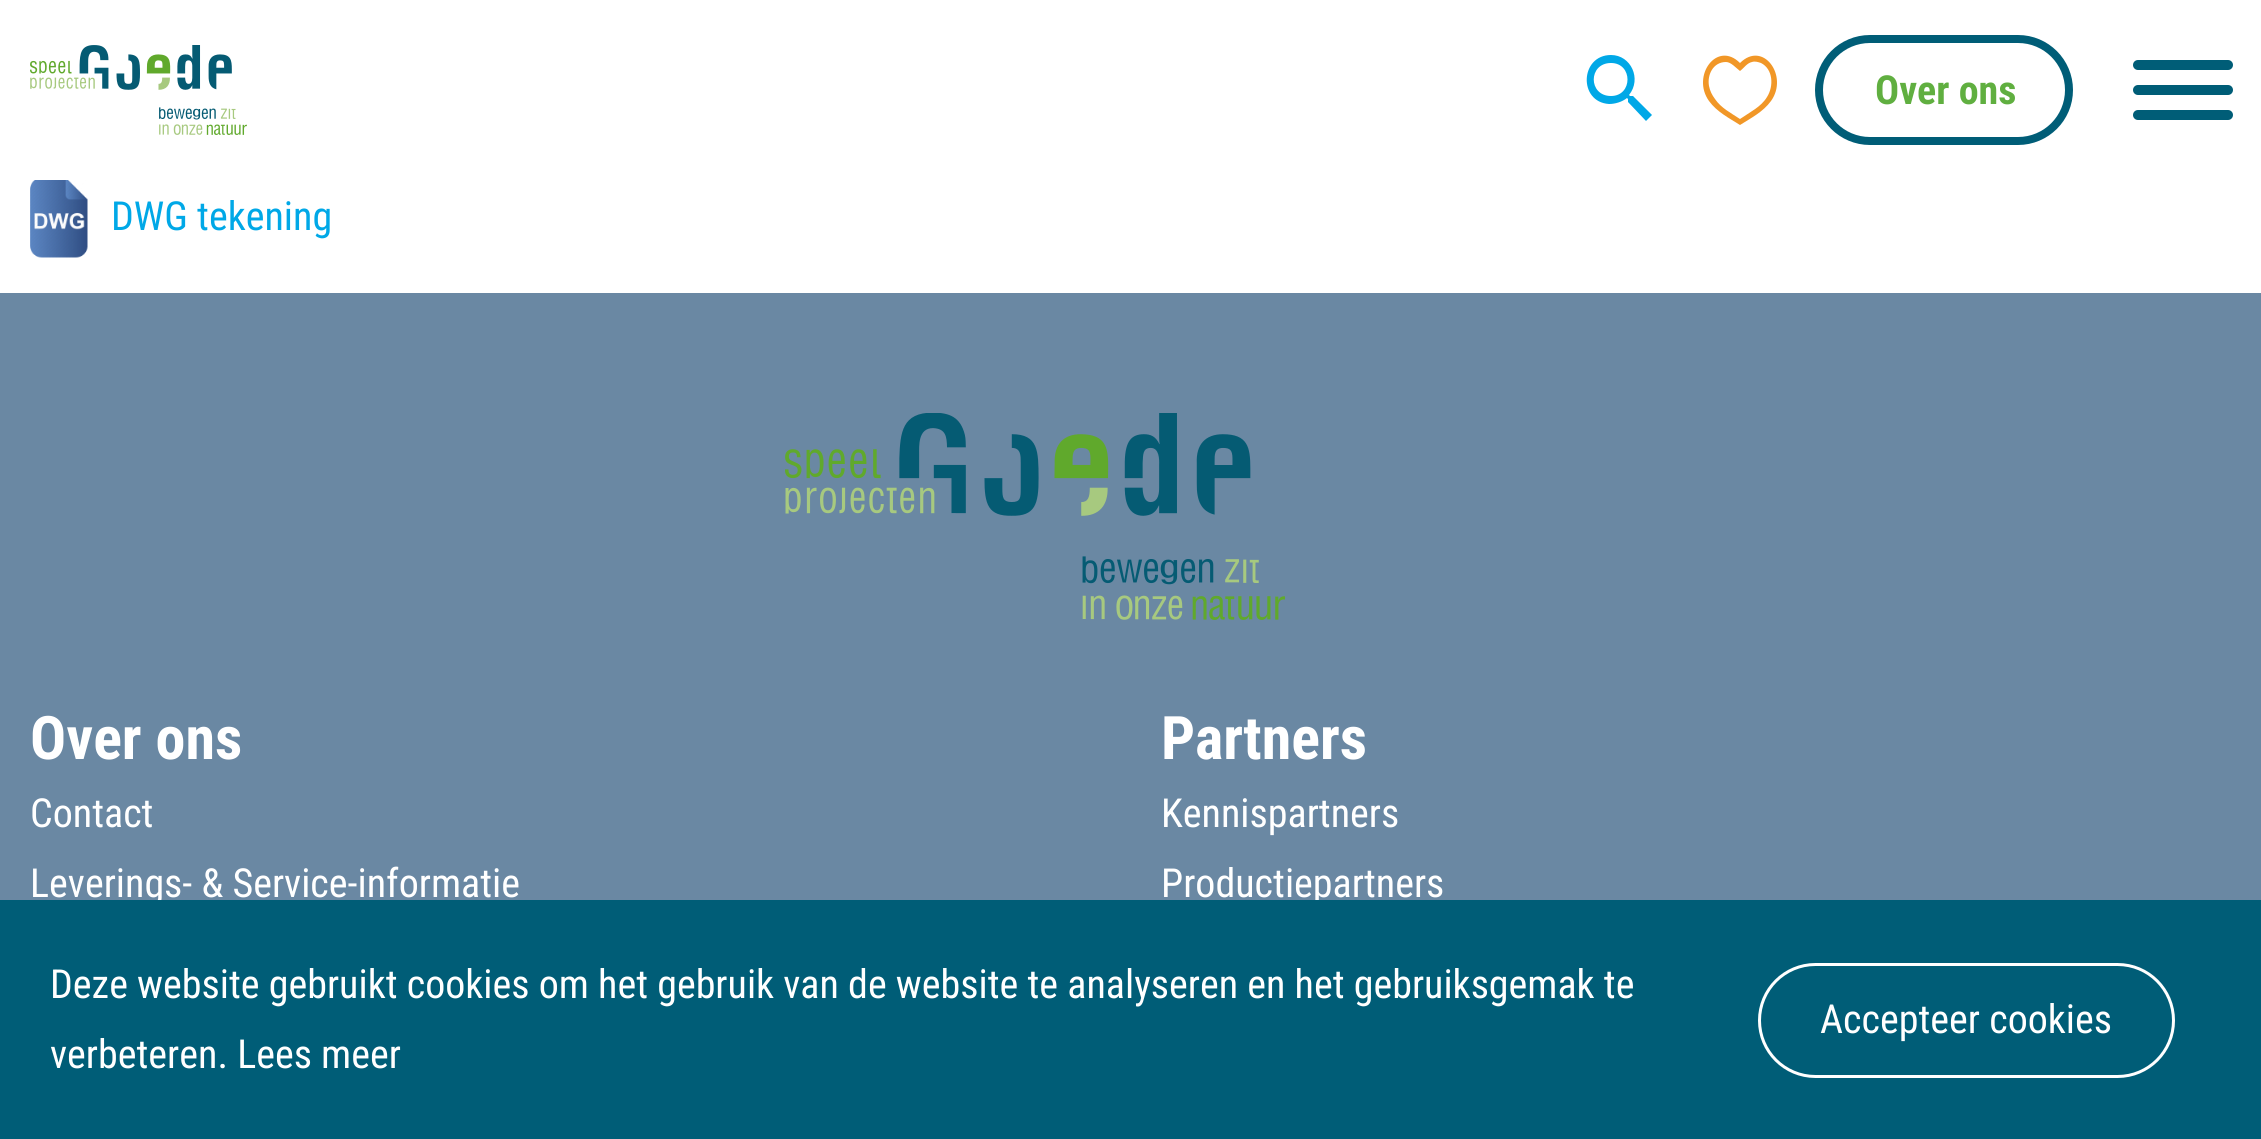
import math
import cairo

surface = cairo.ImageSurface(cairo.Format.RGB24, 2261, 1139)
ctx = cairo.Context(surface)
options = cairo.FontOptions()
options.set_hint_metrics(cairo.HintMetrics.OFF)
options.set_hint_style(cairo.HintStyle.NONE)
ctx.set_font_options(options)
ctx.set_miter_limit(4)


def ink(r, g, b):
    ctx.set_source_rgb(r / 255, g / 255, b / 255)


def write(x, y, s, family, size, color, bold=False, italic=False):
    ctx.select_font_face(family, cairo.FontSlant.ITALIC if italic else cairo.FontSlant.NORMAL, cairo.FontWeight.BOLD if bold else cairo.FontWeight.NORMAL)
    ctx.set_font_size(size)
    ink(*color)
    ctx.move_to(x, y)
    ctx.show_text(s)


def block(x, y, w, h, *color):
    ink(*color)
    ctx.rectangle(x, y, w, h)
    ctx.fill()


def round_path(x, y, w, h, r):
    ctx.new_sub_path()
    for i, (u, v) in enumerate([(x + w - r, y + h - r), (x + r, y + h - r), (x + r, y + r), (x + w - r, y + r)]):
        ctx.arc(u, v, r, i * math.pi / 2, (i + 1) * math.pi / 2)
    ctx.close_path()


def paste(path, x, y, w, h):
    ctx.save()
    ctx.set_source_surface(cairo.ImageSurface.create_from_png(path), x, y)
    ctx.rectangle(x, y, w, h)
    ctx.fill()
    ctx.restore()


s1 = dict(family="Roboto Condensed", size=40, color=(96, 175, 64), bold=True)
s2 = dict(family="Roboto Condensed", size=40, color=(0, 168, 231))
s3 = dict(family="Roboto Condensed", size=40, color=(255, 255, 255))
s4 = dict(family="Roboto Condensed", size=60, color=(255, 255, 255), bold=True)

ink(255, 255, 255)
ctx.paint()
paste("pic1.png", 30, 45, 217, 90)
ink(0, 168, 231)
ctx.new_path()
ctx.move_to(1611, 55)
ctx.curve_to(1631, 55, 1642, 79, 1629, 95)
ctx.line_to(1630, 96)
ctx.line_to(1633, 96)
ctx.line_to(1652, 115)
ctx.line_to(1646, 121)
ctx.line_to(1628, 102)
ctx.line_to(1628, 99)
ctx.line_to(1627, 98)
ctx.curve_to(1622, 102, 1615, 104, 1609, 104)
ctx.curve_to(1578, 102, 1580, 55, 1611, 55)
ctx.close_path()
ctx.move_to(1611, 63)
ctx.curve_to(1588, 63, 1588, 96, 1611, 96)
ctx.curve_to(1633, 96, 1633, 63, 1611, 63)
ctx.close_path()
ctx.fill()
ink(241, 151, 39)
ctx.new_path()
ctx.move_to(1740, 125)
ctx.curve_to(1729, 118, 1717, 112, 1709, 101)
ctx.curve_to(1691, 76, 1717, 40, 1740, 63)
ctx.curve_to(1763, 40, 1789, 76, 1771, 101)
ctx.curve_to(1763, 112, 1751, 118, 1740, 125)
ctx.close_path()
ctx.move_to(1726, 62)
ctx.curve_to(1713, 62, 1707, 75, 1709, 86)
ctx.curve_to(1710, 91, 1712, 95, 1715, 99)
ctx.curve_to(1721, 108, 1731, 113, 1740, 119)
ctx.curve_to(1750, 112, 1761, 107, 1767, 97)
ctx.curve_to(1774, 86, 1773, 69, 1761, 63)
ctx.curve_to(1758, 62, 1755, 61, 1752, 62)
ctx.curve_to(1747, 63, 1744, 68, 1740, 71)
ctx.curve_to(1736, 68, 1731, 62, 1726, 62)
ctx.close_path()
ctx.fill()
round_path(1819, 39, 250, 102, 51)
ink(0, 93, 119)
ctx.set_line_width(8)
ctx.stroke()
write(1875, 104, "Over ons", **s1)
ink(0, 93, 119)
round_path(2133, 85, 100, 10, 5)
ctx.fill()
round_path(2133, 60, 100, 10, 5)
ctx.fill()
round_path(2133, 110, 100, 10, 5)
ctx.fill()
paste("pic2.png", 30, 180, 58, 78)
write(111, 230, "DWG tekening", **s2)
block(0, 293, 2261, 607, 106, 136, 163)
write(30, 897, "Leverings- & Service-informatie", **s3)
write(1161, 897, "Productiepartners", **s3)
block(0, 900, 2261, 239, 0, 93, 119)
write(50, 998, "Deze website gebruikt cookies om het gebruik van de website te analyseren en het gebruiksgemak te", **s3)
write(50, 1068, "verbeteren. Lees meer", **s3)
round_path(1759.5, 964.5, 414, 112, 56)
ctx.set_line_width(3)
ctx.stroke()
write(1820, 1033, "Accepteer cookies", **s3)
paste("pic3.png", 785, 413, 500, 207)
write(30, 759, "Over ons", **s4)
write(30, 827, "Contact", **s3)
write(1161, 759, "Partners", **s4)
write(1161, 827, "Kennispartners", **s3)
surface.write_to_png("screenshot.png")
